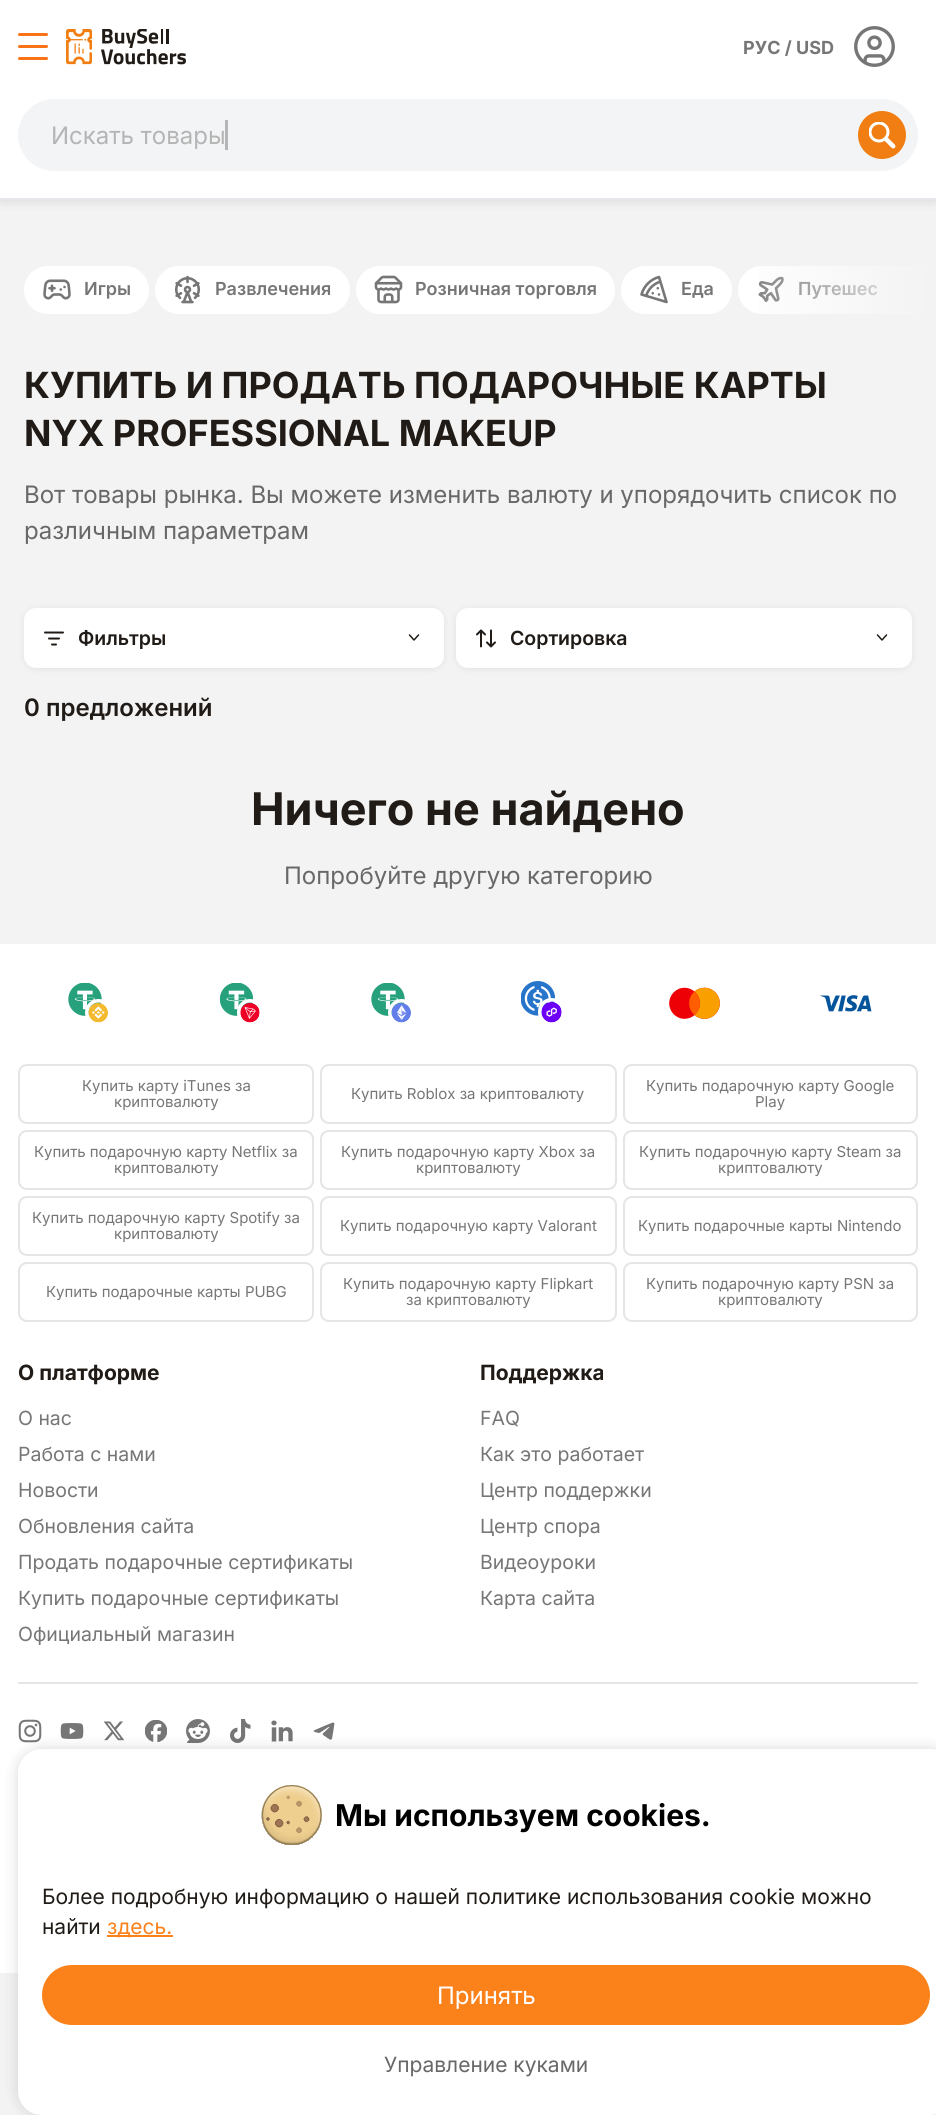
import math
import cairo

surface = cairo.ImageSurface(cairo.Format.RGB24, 936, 2115)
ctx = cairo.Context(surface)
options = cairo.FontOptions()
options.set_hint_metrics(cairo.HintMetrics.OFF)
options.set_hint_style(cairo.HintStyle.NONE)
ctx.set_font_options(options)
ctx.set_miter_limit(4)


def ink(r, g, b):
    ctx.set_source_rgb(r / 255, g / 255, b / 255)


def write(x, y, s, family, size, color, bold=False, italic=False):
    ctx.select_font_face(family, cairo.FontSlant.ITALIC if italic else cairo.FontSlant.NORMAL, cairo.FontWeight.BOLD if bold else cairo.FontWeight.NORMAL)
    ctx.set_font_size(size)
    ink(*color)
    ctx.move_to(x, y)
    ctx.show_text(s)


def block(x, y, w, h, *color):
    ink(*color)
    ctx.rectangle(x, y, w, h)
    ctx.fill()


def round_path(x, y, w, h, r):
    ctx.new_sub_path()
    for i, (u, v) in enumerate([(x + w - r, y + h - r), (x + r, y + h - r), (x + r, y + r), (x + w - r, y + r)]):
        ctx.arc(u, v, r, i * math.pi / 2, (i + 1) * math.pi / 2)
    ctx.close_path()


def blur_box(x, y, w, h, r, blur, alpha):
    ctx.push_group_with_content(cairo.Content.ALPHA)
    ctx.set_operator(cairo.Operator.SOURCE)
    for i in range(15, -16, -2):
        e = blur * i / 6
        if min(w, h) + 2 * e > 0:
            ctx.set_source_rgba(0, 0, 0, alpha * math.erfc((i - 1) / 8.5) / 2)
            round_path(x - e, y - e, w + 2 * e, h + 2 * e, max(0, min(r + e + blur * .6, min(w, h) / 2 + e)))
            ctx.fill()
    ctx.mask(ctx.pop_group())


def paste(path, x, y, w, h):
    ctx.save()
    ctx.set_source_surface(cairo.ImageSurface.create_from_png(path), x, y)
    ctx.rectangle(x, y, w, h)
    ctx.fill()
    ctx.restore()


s1 = dict(family="Inter", size=18, color=(118, 118, 118), bold=True)
s2 = dict(family="Inter", size=24, color=(181, 181, 181))
s3 = dict(family="Inter SemiBold", size=18, color=(118, 118, 118))
s4 = dict(family="Inter", size=36, color=(32, 27, 22), bold=True)
s5 = dict(family="Inter", size=24, color=(104, 104, 104))
s6 = dict(family="Inter SemiBold", size=19.5, color=(32, 27, 22))
s7 = dict(family="Inter SemiBold", size=24, color=(32, 27, 22))
s8 = dict(family="Inter", size=45, color=(32, 27, 22), bold=True)
s9 = dict(family="Inter", size=15, color=(118, 118, 118))
s10 = dict(family="Inter", size=21, color=(32, 27, 22), bold=True)
s11 = dict(family="Inter", size=19.5, color=(118, 118, 118))
s12 = dict(family="Inter", size=30, color=(0, 0, 0), bold=True)
s13 = dict(family="Inter", size=21, color=(32, 27, 22))
s14 = dict(family="Inter", size=21, color=(251, 129, 26))
s15 = dict(family="Inter", size=24, color=(255, 255, 255))
s16 = dict(family="Inter", size=21, color=(104, 104, 104))

ink(243, 243, 243)
ctx.paint()
ink(0, 0, 0)
blur_box(0, 0, 936, 200, 0, 6, 0.13)
block(0, 0, 936, 198, 255, 255, 255)
block(0, 198, 936, 2, 229, 231, 235)
ink(249, 115, 22)
round_path(18, 33, 30, 3, 1.5)
ctx.fill()
round_path(18, 45, 30, 3, 1.5)
ctx.fill()
round_path(18, 57, 30, 3, 1.5)
ctx.fill()
paste("pic1.png", 66, 29, 120, 36)
write(743, 54, "РУС / USD", **s1)
paste("pic2.png", 854, 26, 41, 41)
ink(242, 244, 245)
round_path(18, 99, 900, 72, 36)
ctx.fill()
block(225, 120, 3, 30, 181, 181, 181)
write(51, 144, "Искать товары", **s2)
ink(240, 126, 19)
ctx.new_path()
ctx.arc(882, 135, 24, 0, 2 * math.pi)
ctx.fill()
paste("pic3.png", 869, 122, 27, 27)
ctx.save()
ctx.rectangle(24, 254, 900, 72)
ctx.clip()
ink(255, 255, 255)
round_path(738, 266, 198, 48, 24)
ctx.fill()
ctx.restore()
paste("pic8.png", 758, 276, 26, 26)
write(798, 295, "Путешес", **s3)
gradient = cairo.LinearGradient(924, 290, 732, 290)
gradient.add_color_stop_rgba(0, 0.953, 0.953, 0.953, 0.95)
gradient.add_color_stop_rgba(1, 0.953, 0.953, 0.953, 0)
ctx.set_source(gradient)
ctx.rectangle(758, 266, 166, 48)
ctx.fill()
ink(255, 255, 255)
round_path(24, 266, 125, 48, 24)
ctx.fill()
paste("pic4.png", 43, 279, 28, 21)
write(84, 295, "Игры", **s3)
ink(255, 255, 255)
round_path(155, 266, 195, 48, 24)
ctx.fill()
paste("pic5.png", 175, 275, 25, 29)
write(215, 295, "Развлечения", **s3)
ink(255, 255, 255)
round_path(356, 266, 259, 48, 24)
ctx.fill()
paste("pic6.png", 374, 275, 29, 29)
write(415, 295, "Розничная торговля", **s3)
ink(255, 255, 255)
round_path(621, 266, 111, 48, 24)
ctx.fill()
paste("pic7.png", 640, 275, 28, 29)
write(681, 295, "Еда", **s3)
write(24, 398, "КУПИТЬ И ПРОДАТЬ ПОДАРОЧНЫЕ КАРТЫ", **s4)
write(24, 446, "NYX PROFESSIONAL MAKEUP", **s4)
write(24, 503, "Вот товары рынка. Вы можете изменить валюту и упорядочить список по", **s5)
write(24, 539, "различным параметрам", **s5)
ink(113, 113, 122)
blur_box(24, 609, 420, 60, 12, 3, 0.15)
ink(255, 255, 255)
round_path(24, 608, 420, 60, 12)
ctx.fill()
ctx.new_path()
ctx.move_to(45, 632.5)
ctx.line_to(63, 632.5)
ctx.move_to(49, 638.5)
ctx.line_to(59, 638.5)
ctx.move_to(52, 644.5)
ctx.line_to(56, 644.5)
ink(32, 27, 22)
ctx.set_line_cap(cairo.LineCap.ROUND)
ctx.set_line_join(cairo.LineJoin.ROUND)
ctx.stroke()
write(78, 645, "Фильтры", **s6)
ctx.new_path()
ctx.move_to(418.5, 635)
ctx.line_to(414, 640)
ctx.line_to(409.5, 635)
ctx.set_line_width(1.5)
ctx.stroke()
ink(113, 113, 122)
blur_box(456, 609, 456, 60, 12, 3, 0.15)
ink(255, 255, 255)
round_path(456, 608, 456, 60, 12)
ctx.fill()
paste("pic9.png", 476, 629, 20, 19)
write(510, 645, "Сортировка", **s6)
ctx.new_path()
ctx.move_to(886.5, 635)
ctx.line_to(882, 640)
ctx.line_to(877.5, 635)
ctx.stroke()
write(24, 716, "0 предложений", **s7)
write(251, 825, "Ничего не найдено", **s8)
write(284, 884, "Попробуйте другую категорию", **s5)
block(0, 944, 936, 1029, 255, 255, 255)
block(18, 1682, 900, 2, 229, 229, 229)
paste("pic10.png", 68, 983, 40, 40)
paste("pic11.png", 220, 983, 40, 40)
paste("pic12.png", 371, 983, 40, 40)
paste("pic13.png", 521, 981, 41, 42)
paste("pic14.png", 669, 987, 51, 32)
paste("pic15.png", 820, 995, 52, 17)
round_path(19, 1065, 294, 58, 8)
ctx.set_line_width(2)
ctx.set_line_cap(cairo.LineCap.BUTT)
ctx.set_line_join(cairo.LineJoin.MITER)
ctx.stroke()
write(82, 1091, "Купить карту iTunes за", **s9)
write(114, 1107, "криптовалюту", **s9)
round_path(321, 1065, 295, 58, 8)
ink(229, 229, 229)
ctx.stroke()
write(351, 1099, "Купить Roblox за криптовалюту", **s9)
round_path(624, 1065, 293, 58, 8)
ink(229, 229, 229)
ctx.stroke()
write(646, 1091, "Купить подарочную карту Google", **s9)
write(755, 1107, "Play", **s9)
round_path(19, 1131, 294, 58, 8)
ink(229, 229, 229)
ctx.stroke()
write(34, 1157, "Купить подарочную карту Netflix за", **s9)
write(114, 1173, "криптовалюту", **s9)
round_path(321, 1131, 295, 58, 8)
ink(229, 229, 229)
ctx.stroke()
write(341, 1157, "Купить подарочную карту Xbox за", **s9)
write(416, 1173, "криптовалюту", **s9)
round_path(624, 1131, 293, 58, 8)
ink(229, 229, 229)
ctx.stroke()
write(639, 1157, "Купить подарочную карту Steam за", **s9)
write(718, 1173, "криптовалюту", **s9)
round_path(19, 1197, 294, 58, 8)
ink(229, 229, 229)
ctx.stroke()
write(32, 1223, "Купить подарочную карту Spotify за", **s9)
write(114, 1239, "криптовалюту", **s9)
round_path(321, 1197, 295, 58, 8)
ink(229, 229, 229)
ctx.stroke()
write(340, 1231, "Купить подарочную карту Valorant", **s9)
round_path(624, 1197, 293, 58, 8)
ink(229, 229, 229)
ctx.stroke()
write(638, 1231, "Купить подарочные карты Nintendo", **s9)
round_path(19, 1263, 294, 58, 8)
ink(229, 229, 229)
ctx.stroke()
write(46, 1297, "Купить подарочные карты PUBG", **s9)
round_path(321, 1263, 295, 58, 8)
ink(229, 229, 229)
ctx.stroke()
write(343, 1289, "Купить подарочную карту Flipkart", **s9)
write(406, 1305, "за криптовалюту", **s9)
round_path(624, 1263, 293, 58, 8)
ink(229, 229, 229)
ctx.stroke()
write(646, 1289, "Купить подарочную карту PSN за", **s9)
write(718, 1305, "криптовалюту", **s9)
write(18, 1380, "О платформе", **s10)
write(18, 1425, "О нас", **s11)
write(18, 1461, "Работа с нами", **s11)
write(18, 1497, "Новости", **s11)
write(18, 1533, "Обновления сайта", **s11)
write(18, 1569, "Продать подарочные сертификаты", **s11)
write(18, 1605, "Купить подарочные сертификаты", **s11)
write(18, 1641, "Официальный магазин", **s11)
write(480, 1380, "Поддержка", **s10)
write(480, 1425, "FAQ", **s11)
write(480, 1461, "Как это работает", **s11)
write(480, 1497, "Центр поддержки", **s11)
write(480, 1533, "Центр спора", **s11)
write(480, 1569, "Видеоуроки", **s11)
write(480, 1605, "Карта сайта", **s11)
paste("pic16.png", 18, 1719, 24, 24)
paste("pic17.png", 60, 1723, 24, 16)
paste("pic18.png", 103, 1721, 22, 20)
paste("pic19.png", 145, 1720, 22, 22)
paste("pic20.png", 186, 1719, 24, 24)
paste("pic21.png", 230, 1719, 21, 24)
paste("pic22.png", 271, 1720, 22, 22)
paste("pic23.png", 313, 1722, 22, 18)
ink(0, 0, 0)
blur_box(18, 1749, 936, 366, 24, 7.5, 0.15)
ink(255, 255, 255)
round_path(18, 1749, 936, 366, 24)
ctx.fill()
paste("pic24.png", 261, 1785, 61, 60)
write(335, 1826, "Мы используем cookies.", **s12)
write(42, 1904, "Более подробную информацию о нашей политике использования cookie можно", **s13)
write(42, 1934, "найти", **s13)
block(107, 1935, 66, 2, 251, 129, 26)
write(107, 1934, "здесь.", **s14)
round_path(43.5, 1966.5, 885, 57, 28.5)
ctx.fill_preserve()
ctx.set_line_width(3)
ctx.stroke()
write(437, 2004, "Принять", **s15)
write(384, 2072, "Управление куками", **s16)
surface.write_to_png("screenshot.png")
